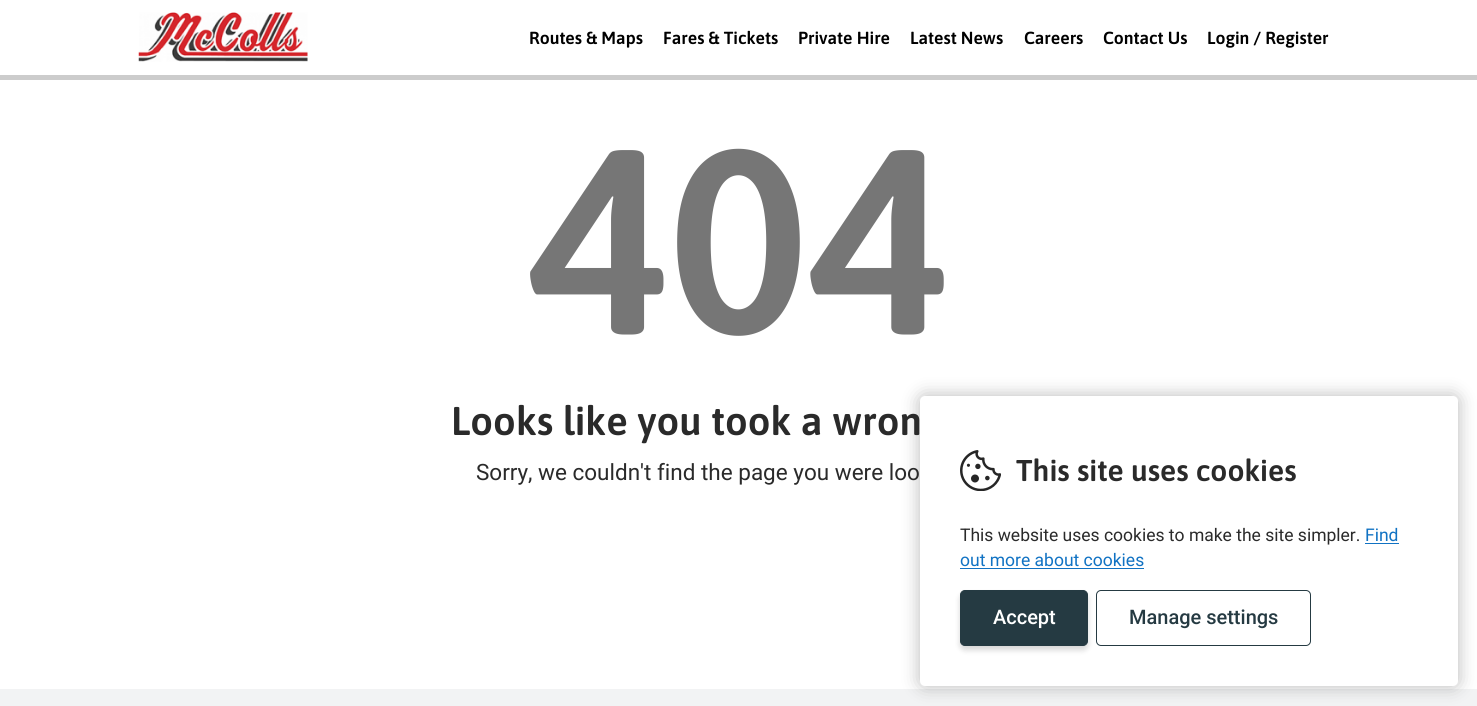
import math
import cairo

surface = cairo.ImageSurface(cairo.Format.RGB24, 1477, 706)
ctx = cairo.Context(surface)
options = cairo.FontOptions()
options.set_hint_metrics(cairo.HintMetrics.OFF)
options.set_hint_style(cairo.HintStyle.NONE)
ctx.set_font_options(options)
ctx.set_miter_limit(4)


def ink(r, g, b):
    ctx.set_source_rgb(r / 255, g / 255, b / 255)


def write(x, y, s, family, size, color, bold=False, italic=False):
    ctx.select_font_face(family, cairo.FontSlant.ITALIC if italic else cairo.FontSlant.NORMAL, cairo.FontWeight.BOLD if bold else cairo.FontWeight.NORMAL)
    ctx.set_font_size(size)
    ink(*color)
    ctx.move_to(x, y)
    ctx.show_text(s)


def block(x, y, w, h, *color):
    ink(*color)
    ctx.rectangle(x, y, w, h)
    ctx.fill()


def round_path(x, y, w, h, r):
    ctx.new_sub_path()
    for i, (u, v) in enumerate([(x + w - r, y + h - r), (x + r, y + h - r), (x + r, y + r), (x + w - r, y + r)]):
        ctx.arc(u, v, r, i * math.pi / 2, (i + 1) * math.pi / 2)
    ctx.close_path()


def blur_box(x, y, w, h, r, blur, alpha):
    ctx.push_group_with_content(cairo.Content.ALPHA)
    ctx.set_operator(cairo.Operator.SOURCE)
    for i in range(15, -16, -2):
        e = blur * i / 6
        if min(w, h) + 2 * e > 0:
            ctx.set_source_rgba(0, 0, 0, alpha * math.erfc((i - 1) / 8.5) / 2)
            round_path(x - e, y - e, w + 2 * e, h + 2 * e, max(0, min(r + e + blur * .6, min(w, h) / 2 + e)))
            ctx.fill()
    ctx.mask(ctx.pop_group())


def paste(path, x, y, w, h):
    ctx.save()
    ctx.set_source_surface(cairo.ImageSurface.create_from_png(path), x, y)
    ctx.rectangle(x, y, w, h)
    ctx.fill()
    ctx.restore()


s1 = dict(family="Asap SemiBold", size=17.5, color=(0, 0, 0))
s2 = dict(family="Asap SemiBold", size=30, color=(42, 42, 42))
s3 = dict(family="Roboto", size=17.5, color=(42, 42, 42))
s4 = dict(family="Roboto", size=17.5, color=(16, 114, 195))
s5 = dict(family="Roboto Medium", size=20, color=(255, 255, 255))
s6 = dict(family="Roboto Medium", size=20, color=(37, 58, 66))
s7 = dict(family="Asap SemiBold", size=262, color=(118, 118, 118))
s8 = dict(family="Asap SemiBold", size=40, color=(42, 42, 42))
s9 = dict(family="Roboto", size=22.5, color=(42, 42, 42))

ink(255, 255, 255)
ctx.paint()
block(0, 75, 1477, 5, 204, 204, 204)
paste("pic1.png", 138, 12, 170, 50)
write(529, 44, "Routes & Maps", **s1)
write(663, 44, "Fares & Tickets", **s1)
write(798, 44, "Private Hire", **s1)
write(910, 44, "Latest News", **s1)
write(1024, 44, "Careers", **s1)
write(1103, 44, "Contact Us", **s1)
write(1207, 44, "Login / Register", **s1)
block(0, 689, 1477, 17, 242, 243, 244)
ink(0, 0, 0)
blur_box(920, 396, 538, 290, 5, 9, 0.28)
ink(255, 255, 255)
round_path(920, 396, 538, 290, 5)
ctx.fill()
paste("pic2.png", 960, 450, 41, 41)
write(1016, 481, "This site uses cookies", **s2)
write(960, 541, "This website uses cookies to make the site simpler.", **s3)
write(1365, 541, "Find", **s4)
block(1365, 543, 34, 1, 16, 114, 195)
write(960, 566, "out more about cookies", **s4)
block(960, 568, 184, 1, 16, 114, 195)
ink(0, 0, 0)
blur_box(960, 594, 128, 56, 5, 3, 0.16)
ink(37, 58, 66)
round_path(960.5, 590.5, 127, 55, 4.5)
ctx.fill_preserve()
ctx.set_line_width(1)
ctx.stroke()
write(993, 624, "Accept", **s5)
round_path(1096.5, 590.5, 214, 55, 4.5)
ink(37, 58, 66)
ctx.stroke()
write(1129, 624, "Manage settings", **s6)
write(528, 334, "404", **s7)
write(451, 435, "Looks like you took a wron", **s8)
write(476, 480, "Sorry, we couldn't find the page you were loo", **s9)
surface.write_to_png("screenshot.png")
